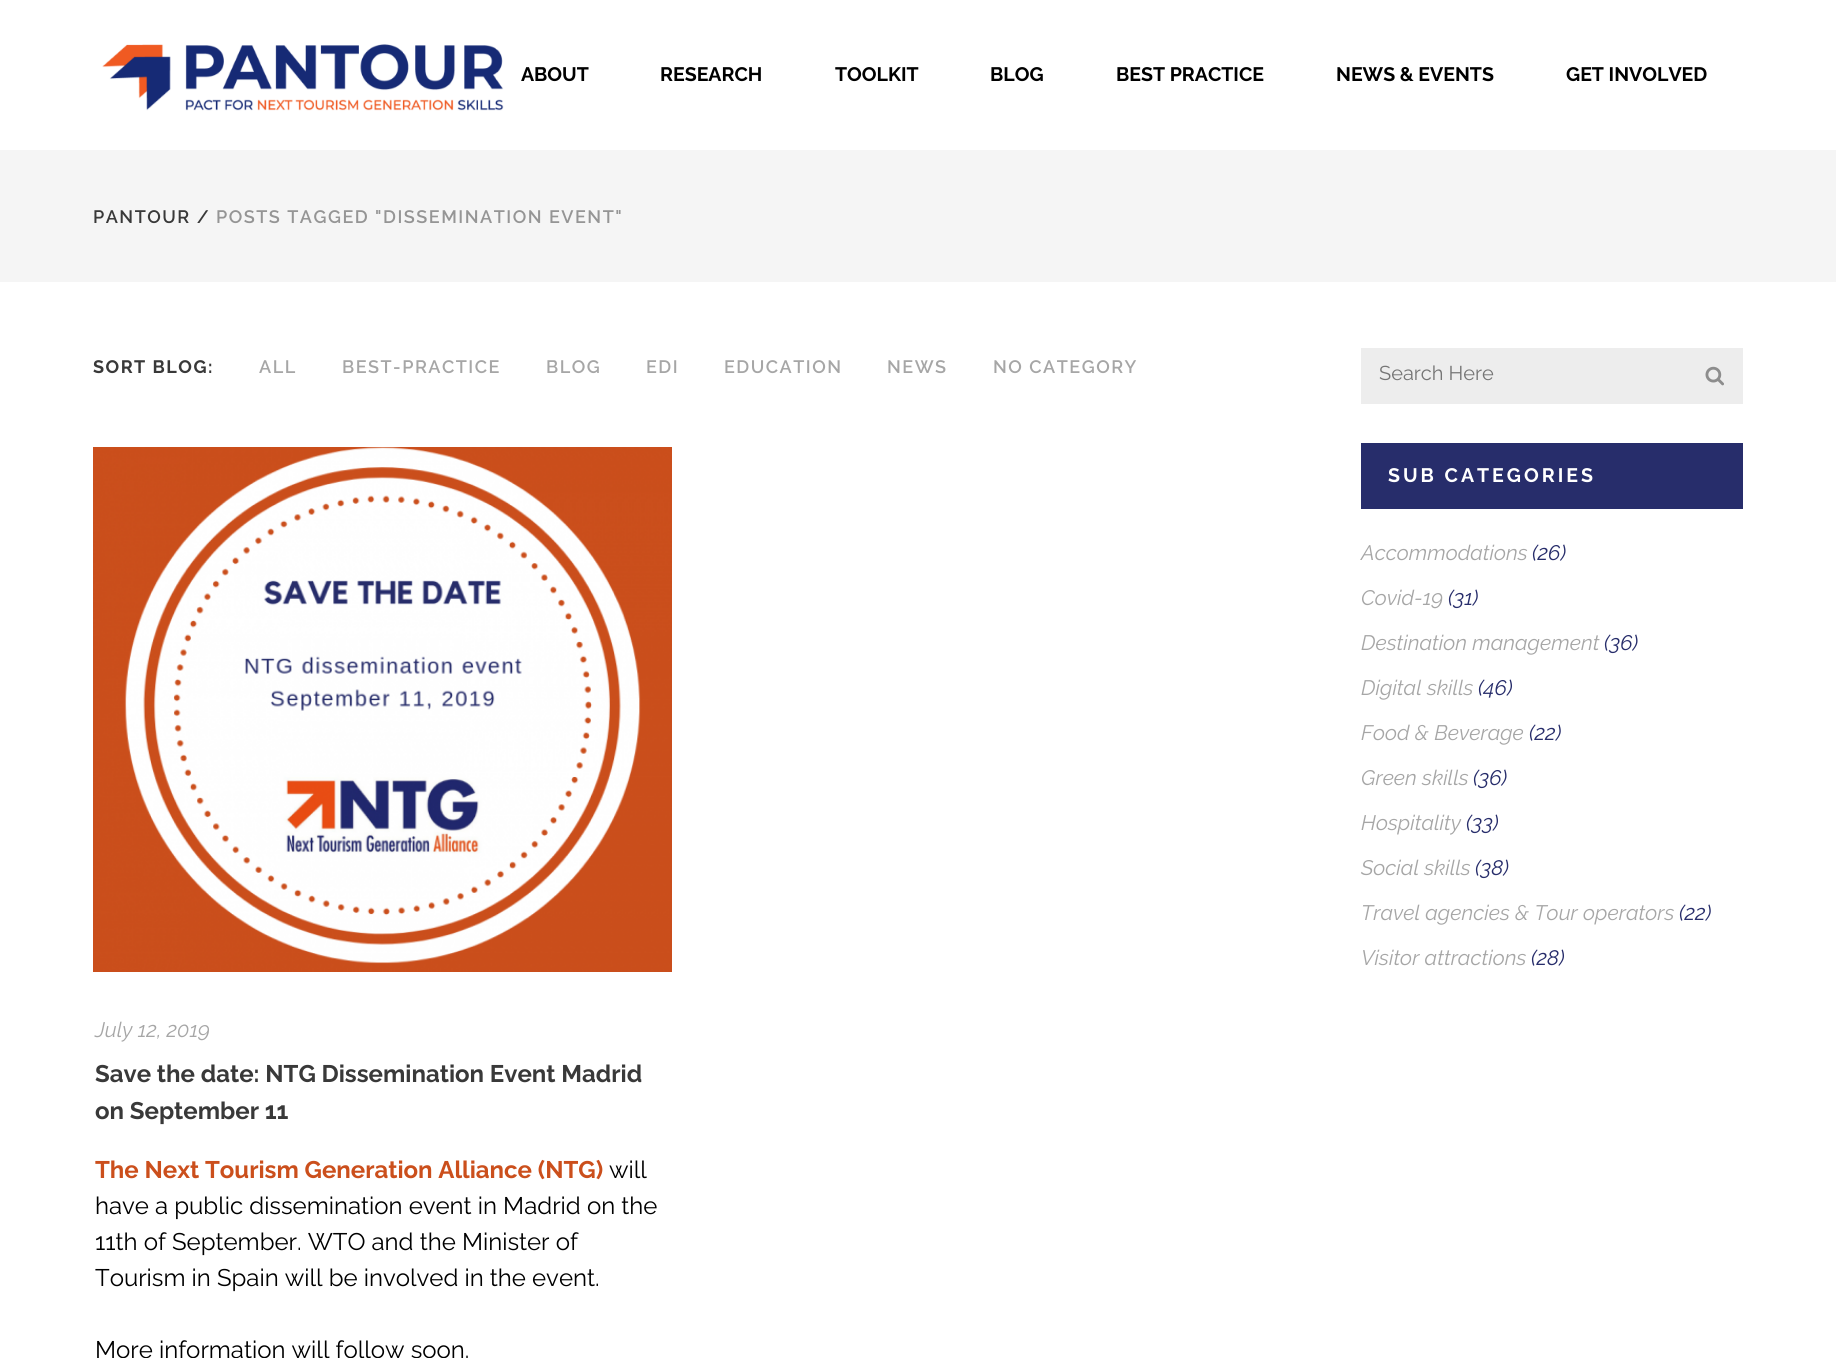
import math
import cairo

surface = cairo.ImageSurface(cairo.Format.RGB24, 1836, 1358)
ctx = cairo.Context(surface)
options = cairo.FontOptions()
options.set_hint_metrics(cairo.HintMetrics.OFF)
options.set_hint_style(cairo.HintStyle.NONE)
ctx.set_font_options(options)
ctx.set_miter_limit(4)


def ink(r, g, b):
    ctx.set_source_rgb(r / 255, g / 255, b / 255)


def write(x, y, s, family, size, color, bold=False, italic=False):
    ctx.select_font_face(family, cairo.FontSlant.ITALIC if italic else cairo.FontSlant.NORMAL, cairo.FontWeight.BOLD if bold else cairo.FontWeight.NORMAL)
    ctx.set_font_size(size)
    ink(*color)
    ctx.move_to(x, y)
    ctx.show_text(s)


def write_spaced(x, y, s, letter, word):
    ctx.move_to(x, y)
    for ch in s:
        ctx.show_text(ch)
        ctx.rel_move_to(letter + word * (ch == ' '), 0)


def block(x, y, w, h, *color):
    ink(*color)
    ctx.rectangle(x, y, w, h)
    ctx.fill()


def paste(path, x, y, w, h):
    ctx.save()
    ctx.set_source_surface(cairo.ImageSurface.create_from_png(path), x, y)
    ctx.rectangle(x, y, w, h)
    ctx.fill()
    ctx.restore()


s1 = dict(family="Raleway", size=19.5, color=(0, 0, 0), bold=True)
s2 = dict(family="Raleway", size=21, color=(166, 166, 166), italic=True)
s3 = dict(family="Raleway", size=24, color=(57, 57, 57), bold=True)
s4 = dict(family="Raleway", size=24, color=(203, 79, 28), bold=True)
s5 = dict(family="Raleway", size=24, color=(0, 0, 0))
s6 = dict(family="Raleway", size=20, color=(117, 117, 117))
s7 = dict(family="Raleway", size=21, color=(39, 45, 107), italic=True)

ink(255, 255, 255)
ctx.paint()
paste("pic1.png", 102, 44, 402, 67)
write(521, 81, "ABOUT", **s1)
write(660, 81, "RESEARCH", **s1)
write(835, 81, "TOOLKIT", **s1)
write(990, 81, "BLOG", **s1)
write(1116, 81, "BEST PRACTICE", **s1)
write(1336, 81, "NEWS & EVENTS", **s1)
write(1566, 81, "GET INVOLVED", **s1)
block(0, 150, 1836, 132, 245, 245, 245)
ctx.select_font_face("Raleway SemiBold")
ctx.set_font_size(18)
ink(57, 57, 57)
write_spaced(93, 223, "PANTOUR /", 1.5, 0)
ink(149, 149, 149)
write_spaced(216, 223, "POSTS TAGGED \"DISSEMINATION EVENT\"", 1.5, 0)
ctx.select_font_face("Raleway", cairo.FontSlant.NORMAL, cairo.FontWeight.BOLD)
ink(57, 57, 57)
write_spaced(93, 373, "SORT BLOG:", 1.5, 0)
ctx.select_font_face("Raleway SemiBold")
ink(166, 166, 166)
write_spaced(259, 373, "ALL", 1.5, 0)
write_spaced(342, 373, "BEST-PRACTICE", 1.5, 0)
write_spaced(546, 373, "BLOG", 1.5, 0)
write_spaced(646, 373, "EDI", 1.5, 0)
write_spaced(724, 373, "EDUCATION", 1.5, 0)
write_spaced(887, 373, "NEWS", 1.5, 0)
write_spaced(993, 373, "NO CATEGORY", 1.5, 0)
paste("pic2.png", 93, 447, 579, 525)
write(95, 1037, "July 12, 2019", **s2)
write(95, 1082, "Save the date: NTG Dissemination Event Madrid", **s3)
write(95, 1119, "on September 11", **s3)
write(95, 1178, "The Next Tourism Generation Alliance (NTG)", **s4)
write(609, 1178, "will", **s5)
write(95, 1214, "have a public dissemination event in Madrid on the", **s5)
write(95, 1250, "11th of September. WTO and the Minister of", **s5)
write(95, 1286, "Tourism in Spain will be involved in the event.", **s5)
write(95, 1358, "More information will follow soon.", **s5)
block(1361, 348, 382, 56, 237, 237, 237)
write(1379, 380, "Search Here", **s6)
paste("pic3.png", 1705, 366, 19, 20)
block(1361, 443, 382, 66, 39, 45, 107)
ctx.select_font_face("Raleway", cairo.FontSlant.NORMAL, cairo.FontWeight.BOLD)
ctx.set_font_size(19.5)
ink(255, 255, 255)
write_spaced(1388, 482, "SUB CATEGORIES", 3, 0)
write(1361, 560, "Accommodations", **s2)
write(1532, 560, "(26)", **s7)
write(1361, 605, "Covid-19", **s2)
write(1448, 605, "(31)", **s7)
write(1361, 650, "Destination management", **s2)
write(1604, 650, "(36)", **s7)
write(1361, 695, "Digital skills", **s2)
write(1478, 695, "(46)", **s7)
write(1361, 740, "Food & Beverage", **s2)
write(1529, 740, "(22)", **s7)
write(1361, 785, "Green skills", **s2)
write(1473, 785, "(36)", **s7)
write(1361, 830, "Hospitality", **s2)
write(1466, 830, "(33)", **s7)
write(1361, 875, "Social skills", **s2)
write(1475, 875, "(38)", **s7)
write(1361, 920, "Travel agencies & Tour operators", **s2)
write(1679, 920, "(22)", **s7)
write(1361, 965, "Visitor attractions", **s2)
write(1531, 965, "(28)", **s7)
surface.write_to_png("screenshot.png")
